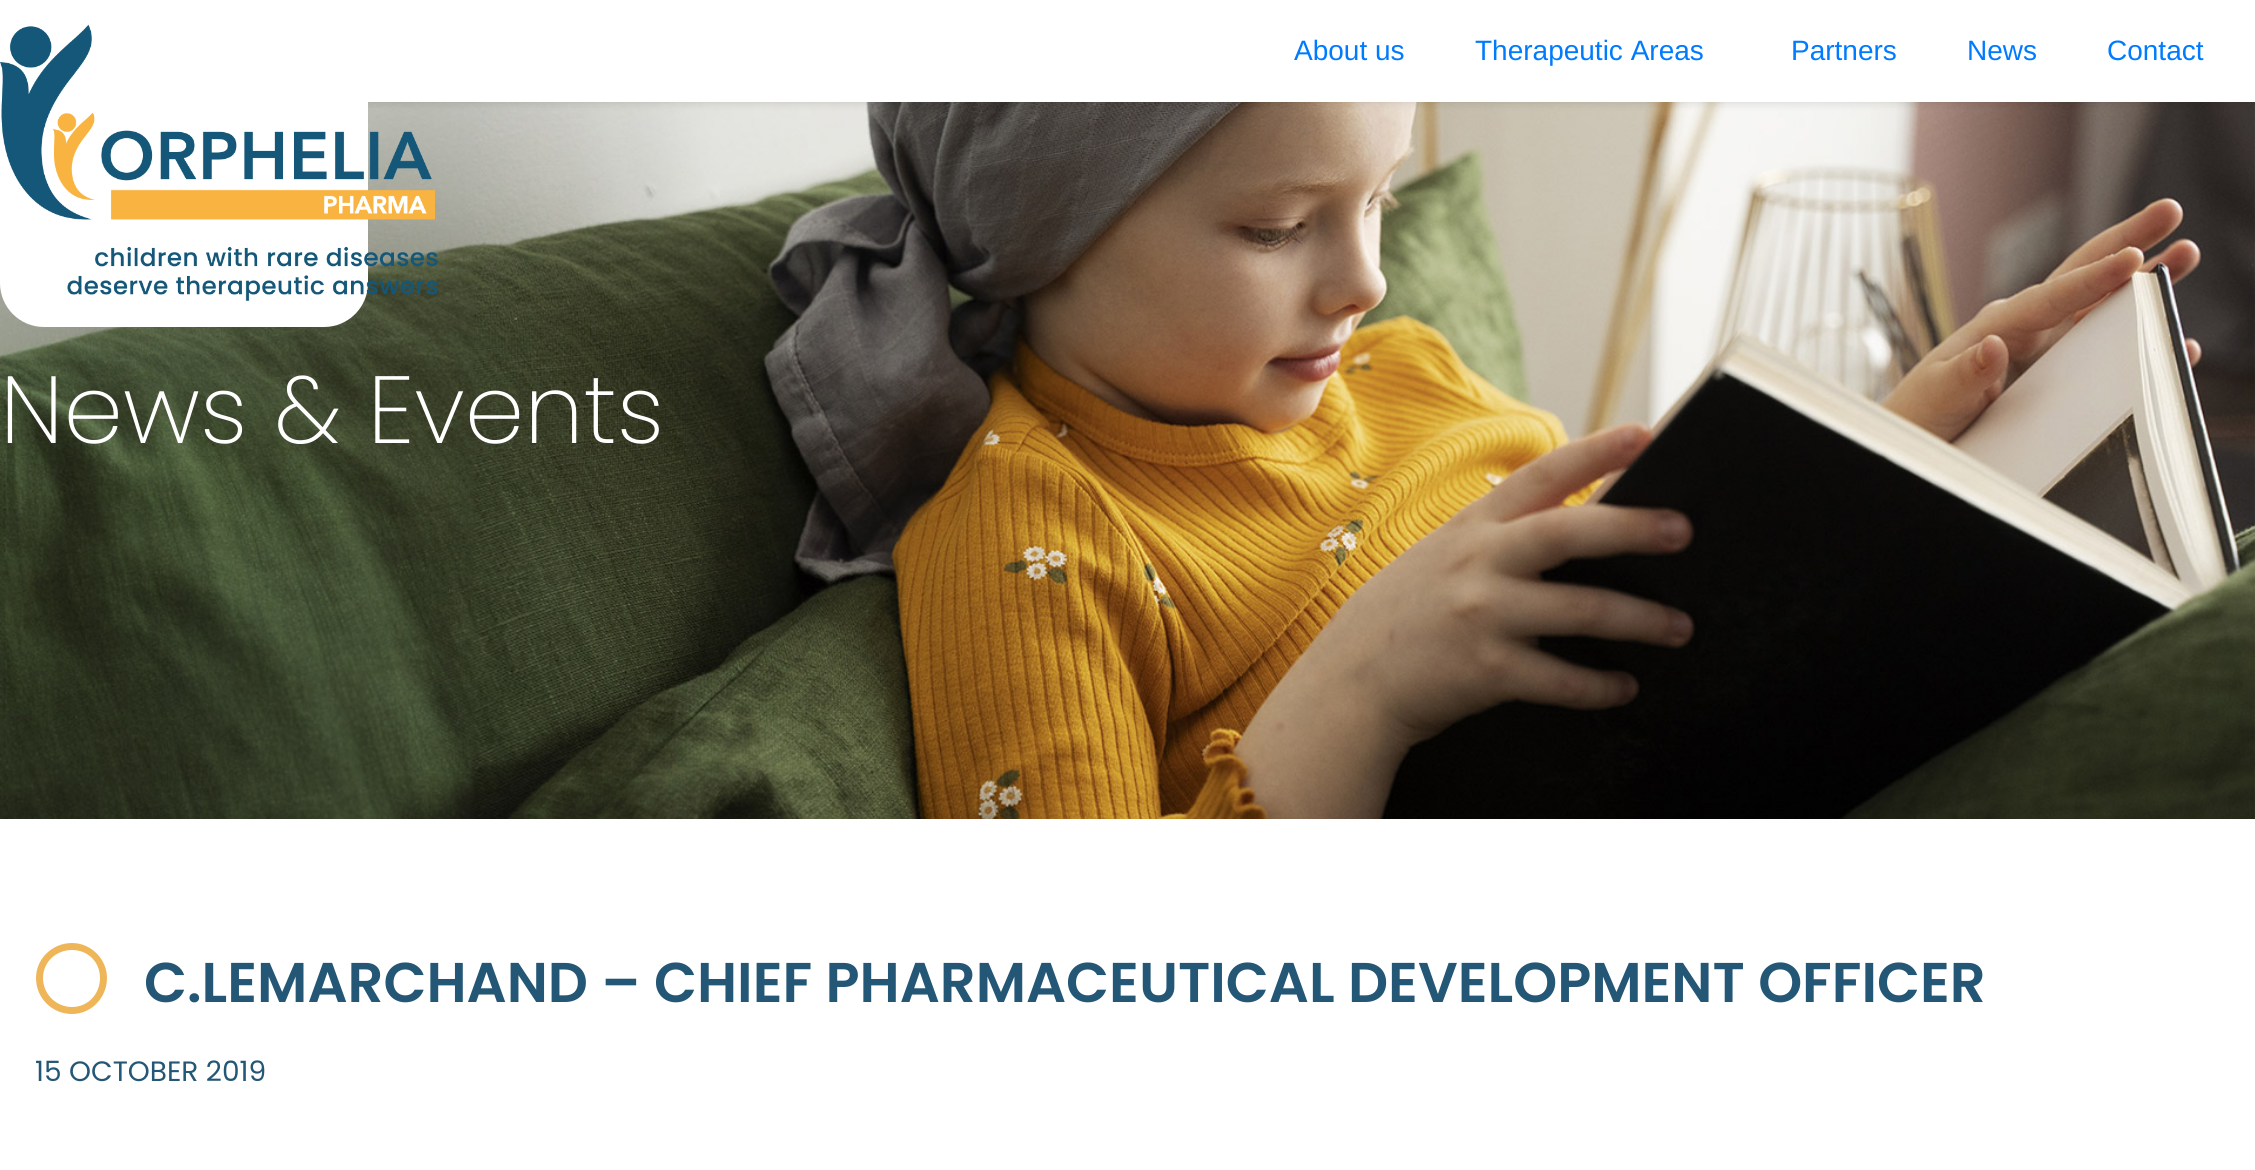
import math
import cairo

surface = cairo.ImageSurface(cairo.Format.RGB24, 2255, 1170)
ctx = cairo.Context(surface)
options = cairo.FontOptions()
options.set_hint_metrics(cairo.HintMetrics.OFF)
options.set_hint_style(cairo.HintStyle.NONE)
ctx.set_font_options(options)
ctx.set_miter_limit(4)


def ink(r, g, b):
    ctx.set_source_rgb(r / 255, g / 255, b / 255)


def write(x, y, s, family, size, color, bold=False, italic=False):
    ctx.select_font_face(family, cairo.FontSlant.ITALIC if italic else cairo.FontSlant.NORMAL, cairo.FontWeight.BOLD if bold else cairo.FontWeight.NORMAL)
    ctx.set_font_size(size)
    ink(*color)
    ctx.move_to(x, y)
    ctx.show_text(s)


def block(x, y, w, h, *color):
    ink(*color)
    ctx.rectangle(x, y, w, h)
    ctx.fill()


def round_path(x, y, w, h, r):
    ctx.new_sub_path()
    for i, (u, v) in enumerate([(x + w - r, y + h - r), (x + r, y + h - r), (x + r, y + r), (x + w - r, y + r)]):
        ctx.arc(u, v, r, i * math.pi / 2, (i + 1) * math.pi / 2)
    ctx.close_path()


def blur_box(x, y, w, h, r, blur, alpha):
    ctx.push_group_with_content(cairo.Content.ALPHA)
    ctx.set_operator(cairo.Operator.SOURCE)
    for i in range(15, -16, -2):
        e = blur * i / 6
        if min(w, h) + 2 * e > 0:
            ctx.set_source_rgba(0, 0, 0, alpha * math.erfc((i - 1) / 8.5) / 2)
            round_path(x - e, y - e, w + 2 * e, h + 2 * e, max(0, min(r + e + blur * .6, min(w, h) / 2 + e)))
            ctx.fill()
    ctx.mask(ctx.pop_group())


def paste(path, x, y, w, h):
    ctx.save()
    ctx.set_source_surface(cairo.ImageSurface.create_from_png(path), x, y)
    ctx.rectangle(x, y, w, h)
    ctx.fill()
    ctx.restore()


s1 = dict(family="Liberation Sans", size=28, color=(0, 123, 255))
s2 = dict(family="Poppins ExtraLight", size=95.25, color=(255, 255, 255))
s3 = dict(family="Poppins SemiBold", size=56, color=(36, 86, 117))
s4 = dict(family="Poppins", size=28, color=(36, 86, 117))

ink(255, 255, 255)
ctx.paint()
paste("pic2.png", 0, 102, 2255, 717)
ink(0, 0, 0)
blur_box(0, 0, 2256, 102, 0, 5, 0.15)
block(0, 0, 2255, 102, 255, 255, 255)
round_path(0, 7, 368, 320, 44)
ctx.fill()
paste("pic1.png", 0, 24, 438, 277)
write(1294, 60, "About us", **s1)
write(1475, 60, "Therapeutic Areas", **s1)
write(1791, 60, "Partners", **s1)
write(1967, 60, "News", **s1)
write(2107, 60, "Contact", **s1)
write(0, 443, "News & Events", **s2)
ink(239, 181, 89)
ctx.new_path()
ctx.move_to(72, 943)
ctx.curve_to(52, 943, 36, 959, 36, 978)
ctx.curve_to(36, 998, 52, 1014, 72, 1014)
ctx.curve_to(91, 1014, 107, 998, 107, 978)
ctx.curve_to(107, 959, 91, 943, 72, 943)
ctx.close_path()
ctx.move_to(72, 1007)
ctx.curve_to(56, 1007, 43, 994, 43, 978)
ctx.curve_to(43, 962, 56, 950, 72, 950)
ctx.curve_to(88, 950, 100, 962, 100, 978)
ctx.curve_to(100, 994, 88, 1007, 72, 1007)
ctx.close_path()
ctx.fill()
write(144, 1002, "C.LEMARCHAND – CHIEF PHARMACEUTICAL DEVELOPMENT OFFICER", **s3)
write(35, 1081, "15 OCTOBER 2019", **s4)
surface.write_to_png("screenshot.png")
